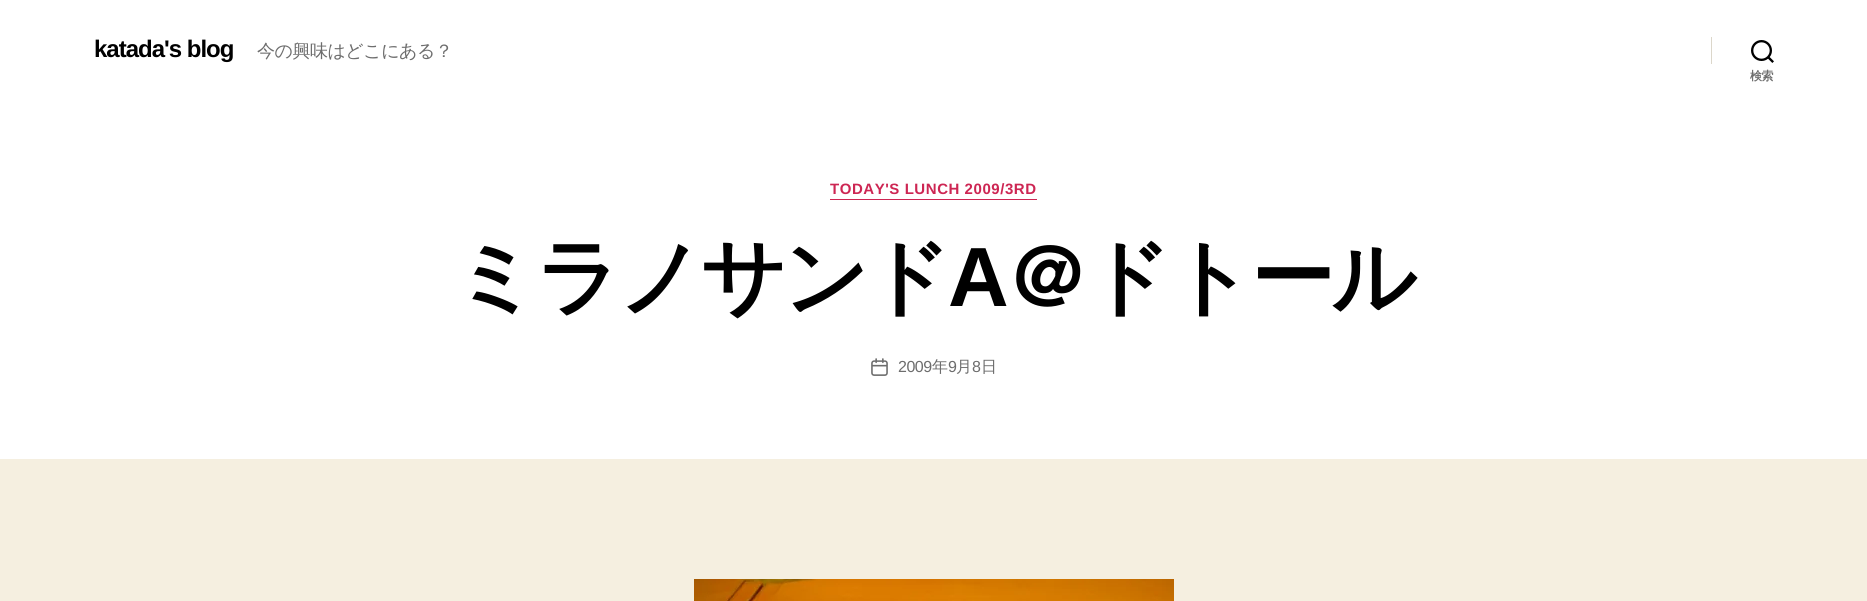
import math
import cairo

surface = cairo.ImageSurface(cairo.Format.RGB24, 1867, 601)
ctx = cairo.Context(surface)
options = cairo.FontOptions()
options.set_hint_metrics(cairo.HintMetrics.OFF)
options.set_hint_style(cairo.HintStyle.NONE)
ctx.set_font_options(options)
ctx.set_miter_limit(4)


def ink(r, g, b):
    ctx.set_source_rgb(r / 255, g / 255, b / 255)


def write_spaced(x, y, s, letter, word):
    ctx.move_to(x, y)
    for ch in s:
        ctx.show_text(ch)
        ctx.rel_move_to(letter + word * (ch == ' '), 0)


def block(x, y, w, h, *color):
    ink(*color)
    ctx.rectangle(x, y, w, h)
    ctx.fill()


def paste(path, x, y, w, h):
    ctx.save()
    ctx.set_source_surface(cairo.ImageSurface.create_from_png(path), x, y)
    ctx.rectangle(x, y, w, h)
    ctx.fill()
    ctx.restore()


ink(245, 239, 224)
ctx.paint()
block(0, 0, 1867, 459, 255, 255, 255)
ctx.select_font_face("Liberation Sans", cairo.FontSlant.NORMAL, cairo.FontWeight.BOLD)
ctx.set_font_size(24)
ink(0, 0, 0)
write_spaced(94, 57, "katada's blog", -1, 0)
ctx.select_font_face("WenQuanYi Zen Hei Medium")
ctx.set_font_size(18)
ink(109, 109, 109)
write_spaced(257, 57, "今の興味はどこにある？", -0.5, 0)
block(1711, 37, 1, 27, 220, 215, 202)
paste("pic1.png", 1751, 40, 23, 23)
ctx.select_font_face("WenQuanYi Zen Hei", cairo.FontSlant.NORMAL, cairo.FontWeight.BOLD)
ctx.set_font_size(12)
ink(109, 109, 109)
write_spaced(1750, 80, "検索", -0.5, 0)
block(830, 199, 207, 1, 205, 38, 83)
ctx.select_font_face("Liberation Sans", cairo.FontSlant.NORMAL, cairo.FontWeight.BOLD)
ctx.set_font_size(15)
write_spaced(830, 194, "TODAY'S LUNCH 2009/3RD", 0.55, 0)
ctx.select_font_face("WenQuanYi Zen Hei", cairo.FontSlant.NORMAL, cairo.FontWeight.BOLD)
ctx.set_font_size(84)
ink(0, 0, 0)
write_spaced(453, 306, "ミラノサンド", -3.5, 0)
ctx.select_font_face("Liberation Sans", cairo.FontSlant.NORMAL, cairo.FontWeight.BOLD)
write_spaced(948, 306, "A", -3.5, 0)
ctx.select_font_face("WenQuanYi Zen Hei", cairo.FontSlant.NORMAL, cairo.FontWeight.BOLD)
write_spaced(1005, 306, "＠ドトール", -3.5, 0)
paste("pic2.png", 871, 358, 17, 18)
ctx.select_font_face("Liberation Sans")
ctx.set_font_size(16)
ink(109, 109, 109)
write_spaced(898, 372, "2009", -0.5, 0)
ctx.select_font_face("WenQuanYi Zen Hei Medium")
write_spaced(932, 372, "年", -0.5, 0)
ctx.select_font_face("Liberation Sans")
write_spaced(948, 372, "9", -0.5, 0)
ctx.select_font_face("WenQuanYi Zen Hei Medium")
write_spaced(956, 372, "月", -0.5, 0)
ctx.select_font_face("Liberation Sans")
write_spaced(972, 372, "8", -0.5, 0)
ctx.select_font_face("WenQuanYi Zen Hei Medium")
write_spaced(981, 372, "日", -0.5, 0)
paste("pic3.png", 694, 579, 480, 22)
surface.write_to_png("screenshot.png")
